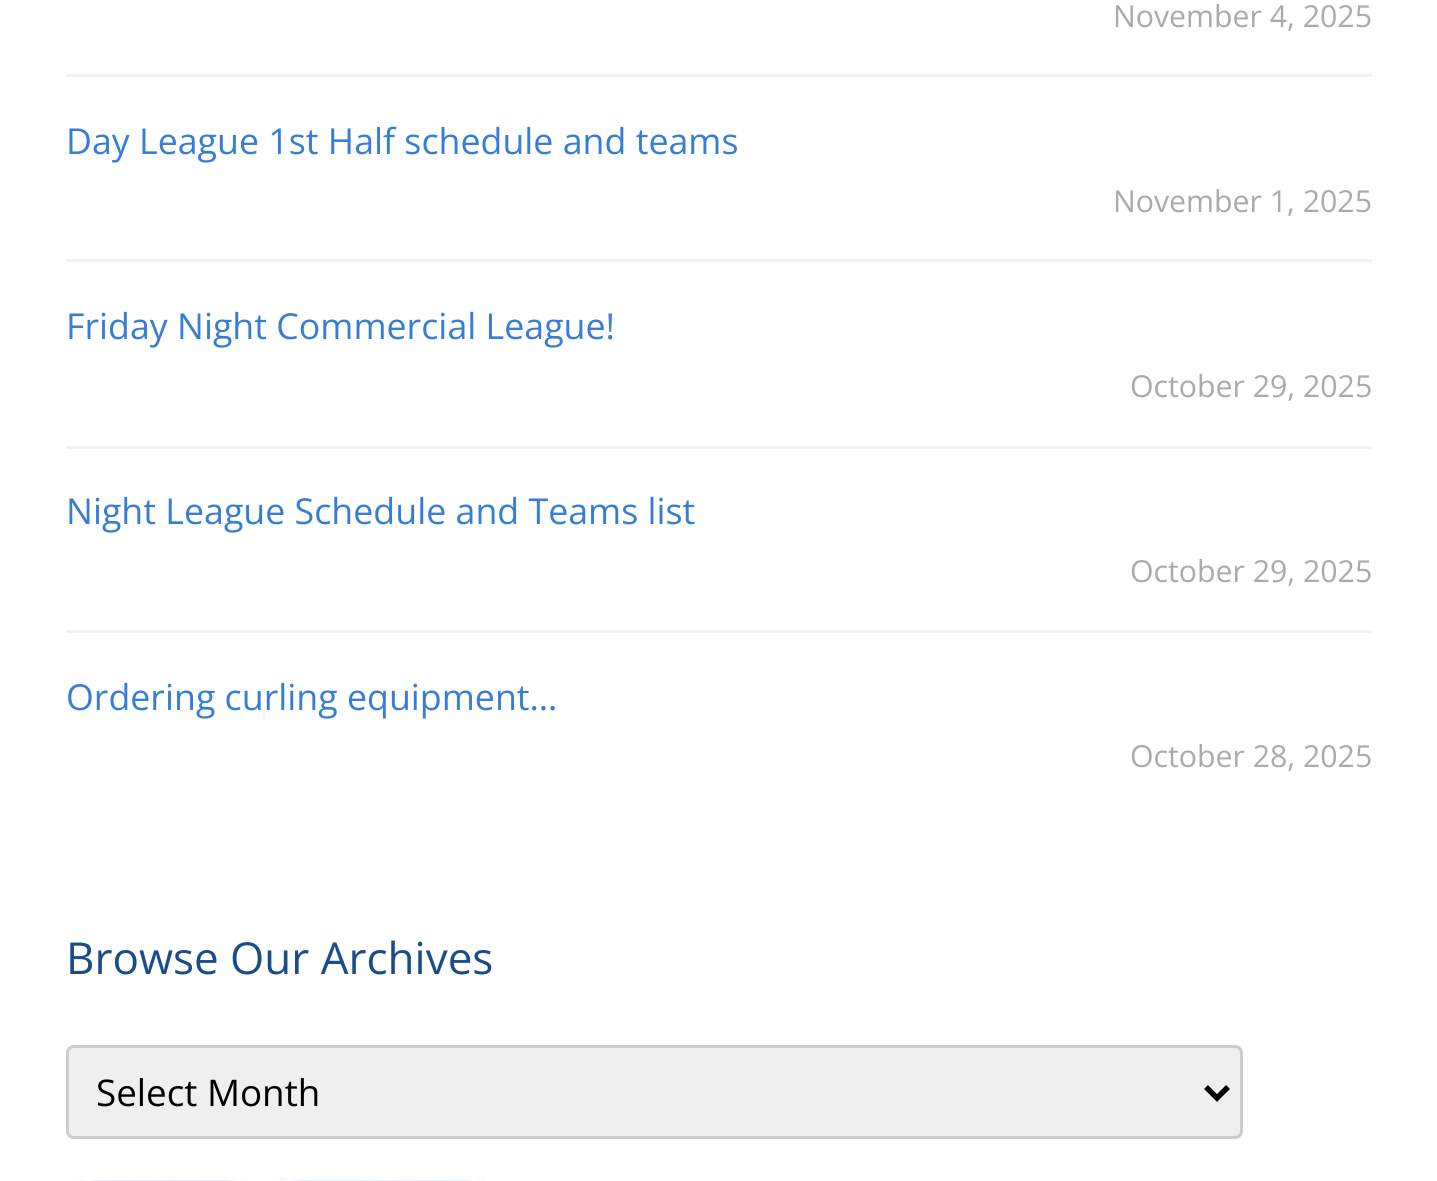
import math
import cairo

surface = cairo.ImageSurface(cairo.Format.RGB24, 1437, 1181)
ctx = cairo.Context(surface)
options = cairo.FontOptions()
options.set_hint_metrics(cairo.HintMetrics.OFF)
options.set_hint_style(cairo.HintStyle.NONE)
ctx.set_font_options(options)
ctx.set_miter_limit(4)


def ink(r, g, b):
    ctx.set_source_rgb(r / 255, g / 255, b / 255)


def write(x, y, s, family, size, color, bold=False, italic=False):
    ctx.select_font_face(family, cairo.FontSlant.ITALIC if italic else cairo.FontSlant.NORMAL, cairo.FontWeight.BOLD if bold else cairo.FontWeight.NORMAL)
    ctx.set_font_size(size)
    ink(*color)
    ctx.move_to(x, y)
    ctx.show_text(s)


def block(x, y, w, h, *color):
    ink(*color)
    ctx.rectangle(x, y, w, h)
    ctx.fill()


def round_path(x, y, w, h, r):
    ctx.new_sub_path()
    for i, (u, v) in enumerate([(x + w - r, y + h - r), (x + r, y + h - r), (x + r, y + r), (x + w - r, y + r)]):
        ctx.arc(u, v, r, i * math.pi / 2, (i + 1) * math.pi / 2)
    ctx.close_path()


def paste(path, x, y, w, h):
    ctx.save()
    ctx.set_source_surface(cairo.ImageSurface.create_from_png(path), x, y)
    ctx.rectangle(x, y, w, h)
    ctx.fill()
    ctx.restore()


s1 = dict(family="Open Sans", size=30.25, color=(170, 170, 170))
s2 = dict(family="Open Sans", size=35.75, color=(55, 125, 213))
s3 = dict(family="Open Sans", size=44, color=(27, 76, 138))
s4 = dict(family="Open Sans", size=36.75, color=(0, 0, 0))

ink(255, 255, 255)
ctx.paint()
write(1113, 27, "November 4, 2025", **s1)
block(66, 74, 1306, 3, 241, 241, 241)
write(66, 154, "Day League 1st Half schedule and teams", **s2)
write(1113, 212, "November 1, 2025", **s1)
block(66, 259, 1306, 3, 241, 241, 241)
write(66, 339, "Friday Night Commercial League!", **s2)
write(1130, 397, "October 29, 2025", **s1)
block(66, 446, 1306, 3, 241, 241, 241)
write(66, 524, "Night League Schedule and Teams list", **s2)
write(1130, 582, "October 29, 2025", **s1)
block(66, 630, 1306, 3, 241, 241, 241)
write(66, 710, "Ordering curling equipment…", **s2)
write(1130, 767, "October 28, 2025", **s1)
write(66, 974, "Browse Our Archives", **s3)
ink(239, 239, 239)
round_path(67.5, 1046.5, 1174, 91, 6.5)
ctx.fill_preserve()
ink(204, 204, 204)
ctx.set_line_width(3)
ctx.stroke()
ctx.new_path()
ctx.move_to(1206, 1087)
ctx.line_to(1217, 1098)
ctx.line_to(1228, 1087)
ink(0, 0, 0)
ctx.set_line_width(5.5)
ctx.stroke()
write(96, 1106, "Select Month", **s4)
paste("pic1.png", 76, 1180, 171, 1)
paste("pic2.png", 267, 1177, 219, 4)
surface.write_to_png("screenshot.png")
